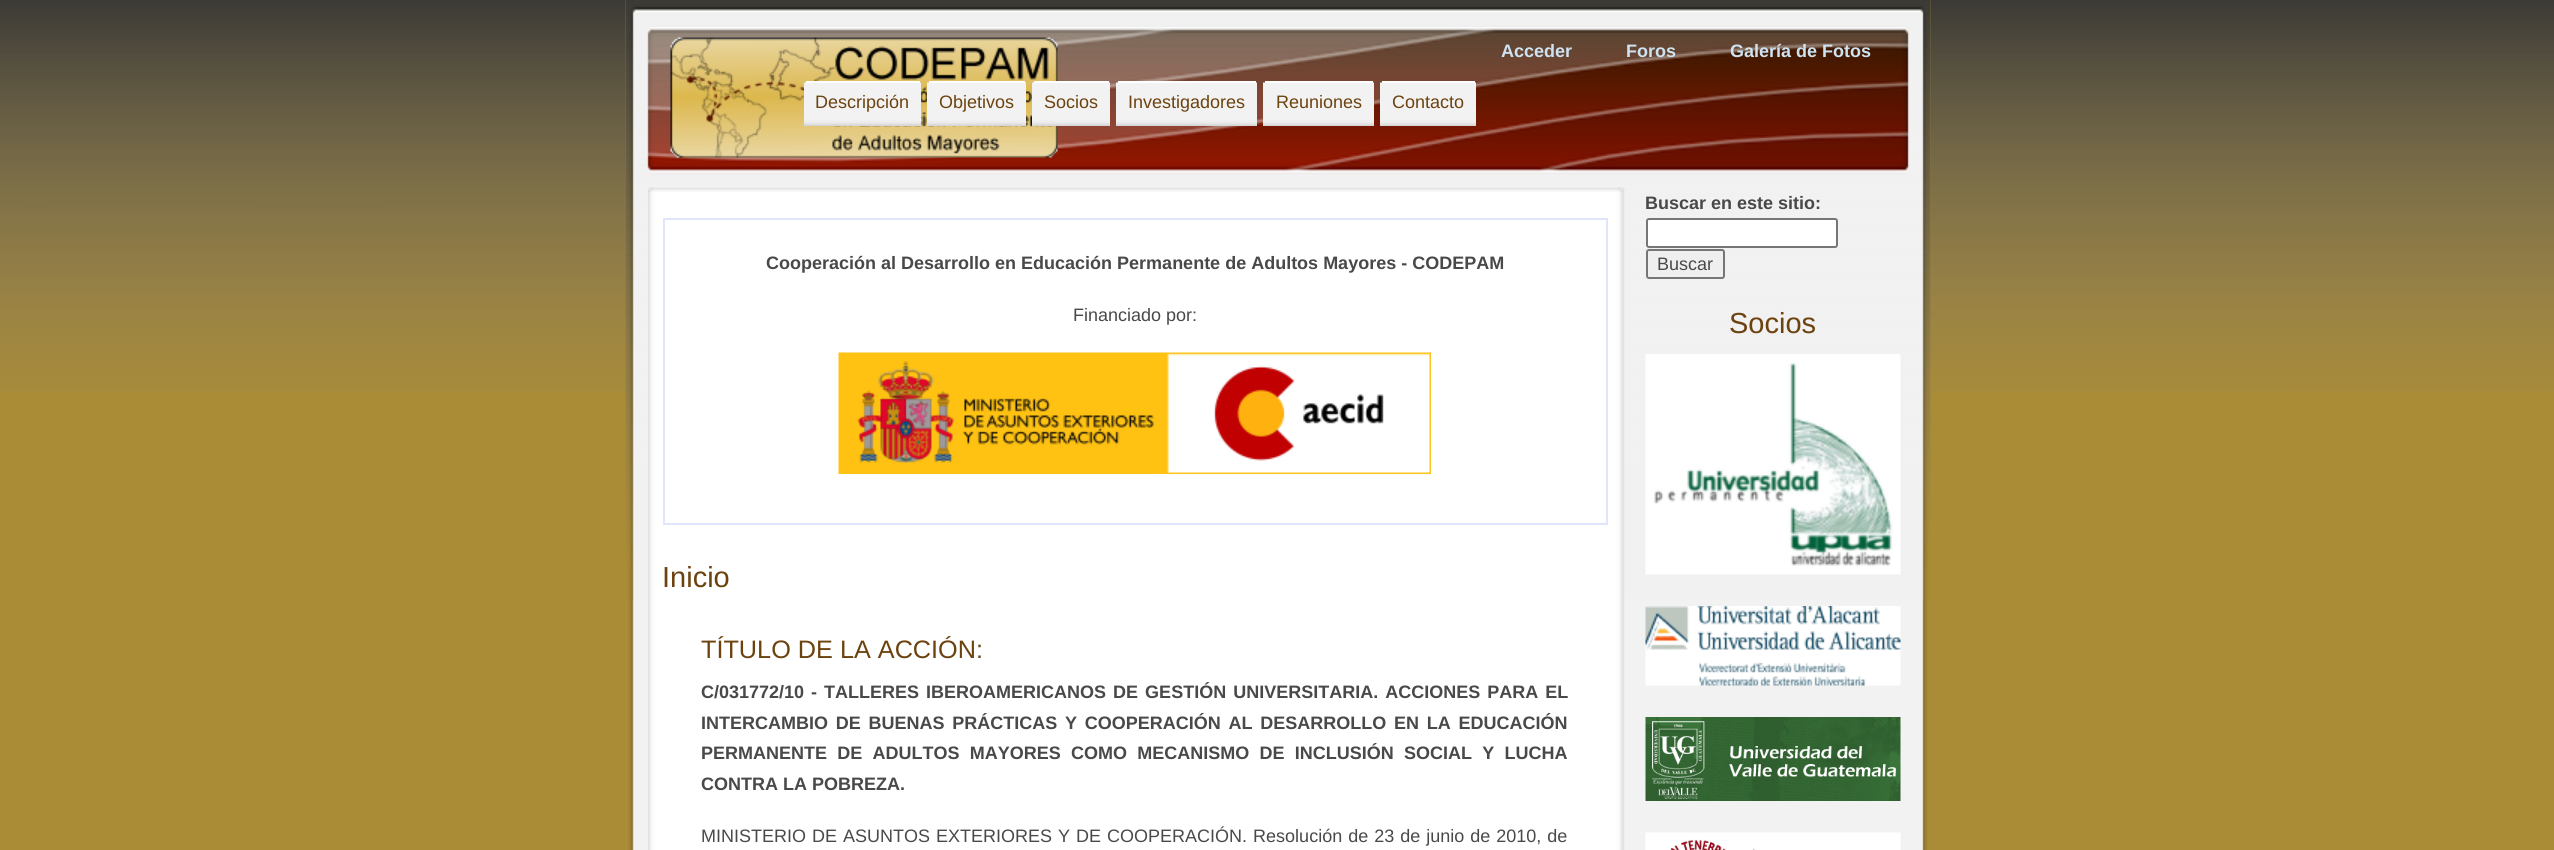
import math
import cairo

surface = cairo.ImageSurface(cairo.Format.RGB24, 2554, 850)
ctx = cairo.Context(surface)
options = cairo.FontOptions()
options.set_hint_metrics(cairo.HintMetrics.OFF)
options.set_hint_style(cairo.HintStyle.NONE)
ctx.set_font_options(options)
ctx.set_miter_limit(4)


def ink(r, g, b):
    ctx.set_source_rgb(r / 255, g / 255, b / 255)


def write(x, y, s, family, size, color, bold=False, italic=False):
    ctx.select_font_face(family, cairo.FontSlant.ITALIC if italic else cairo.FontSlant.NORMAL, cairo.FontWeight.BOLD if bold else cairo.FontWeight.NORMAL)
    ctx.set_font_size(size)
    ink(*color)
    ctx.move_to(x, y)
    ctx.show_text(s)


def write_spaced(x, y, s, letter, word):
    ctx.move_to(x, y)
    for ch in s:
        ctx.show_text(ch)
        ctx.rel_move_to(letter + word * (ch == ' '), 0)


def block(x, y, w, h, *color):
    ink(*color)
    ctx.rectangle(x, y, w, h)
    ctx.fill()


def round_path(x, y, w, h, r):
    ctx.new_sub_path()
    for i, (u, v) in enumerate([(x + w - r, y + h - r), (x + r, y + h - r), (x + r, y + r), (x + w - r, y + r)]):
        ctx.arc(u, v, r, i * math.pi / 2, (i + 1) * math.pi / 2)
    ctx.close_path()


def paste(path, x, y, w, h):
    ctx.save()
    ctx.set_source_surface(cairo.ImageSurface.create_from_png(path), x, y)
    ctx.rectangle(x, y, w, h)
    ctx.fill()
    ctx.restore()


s1 = dict(family="Liberation Sans", size=18, color=(205, 227, 241), bold=True)
s2 = dict(family="Liberation Sans", size=18, color=(108, 66, 14))
s3 = dict(family="Liberation Sans", size=18, color=(73, 73, 73), bold=True)
s4 = dict(family="Liberation Sans", size=18, color=(73, 73, 73))
s5 = dict(family="Liberation Sans", size=29, color=(108, 66, 14))
s6 = dict(family="Liberation Sans", size=25.25, color=(108, 66, 14))

ink(171, 140, 54)
ctx.paint()
paste("pic1.png", 0, 0, 2554, 392)
paste("pic2.png", 625, 0, 1306, 850)
paste("pic3.png", 625, 0, 1306, 600)
paste("pic4.png", 670, 37, 388, 121)
write(1501, 57, "Acceder", **s1)
write(1626, 57, "Foros", **s1)
write(1730, 57, "Galería de Fotos", **s1)
paste("pic5.png", 804, 82, 117, 44)
block(806, 81, 114, 2, 255, 255, 255)
write(815, 108, "Descripción", **s2)
paste("pic6.png", 927, 82, 99, 44)
block(929, 81, 96, 2, 255, 255, 255)
write(939, 108, "Objetivos", **s2)
paste("pic7.png", 1032, 82, 78, 44)
block(1034, 81, 75, 2, 255, 255, 255)
write(1044, 108, "Socios", **s2)
paste("pic8.png", 1116, 82, 141, 44)
block(1118, 81, 138, 2, 255, 255, 255)
write(1128, 108, "Investigadores", **s2)
paste("pic9.png", 1263, 82, 111, 44)
block(1265, 81, 108, 2, 255, 255, 255)
write(1276, 108, "Reuniones", **s2)
paste("pic10.png", 1380, 82, 96, 44)
block(1382, 81, 93, 2, 255, 255, 255)
write(1392, 108, "Contacto", **s2)
paste("pic11.png", 648, 187, 977, 663)
paste("pic12.png", 648, 187, 975, 5)
ctx.rectangle(664, 219, 943, 305)
ink(224, 229, 251)
ctx.stroke()
write(766, 269, "Cooperación al Desarrollo en Educación Permanente de Adultos Mayores - CODEPAM", **s3)
write(1073, 321, "Financiado por:", **s4)
paste("pic13.png", 838, 352, 593, 122)
write(662, 587, "Inicio", **s5)
write(701, 658, "TÍTULO DE LA ACCIÓN:", **s6)
ctx.select_font_face("Liberation Sans", cairo.FontSlant.NORMAL, cairo.FontWeight.BOLD)
ctx.set_font_size(18)
ink(73, 73, 73)
write_spaced(701, 698, "C/031772/10 - TALLERES IBEROAMERICANOS DE GESTIÓN UNIVERSITARIA. ACCIONES PARA EL", 0, 2)
write_spaced(701, 729, "INTERCAMBIO DE BUENAS PRÁCTICAS Y COOPERACIÓN AL DESARROLLO EN LA EDUCACIÓN", 0, 2.75)
write_spaced(701, 759, "PERMANENTE DE ADULTOS MAYORES COMO MECANISMO DE INCLUSIÓN SOCIAL Y LUCHA", 0, 5.25)
write(701, 790, "CONTRA LA POBREZA.", **s3)
ctx.select_font_face("Liberation Sans")
write_spaced(701, 842, "MINISTERIO DE ASUNTOS EXTERIORES Y DE COOPERACIÓN. Resolución de 23 de junio de 2010, de", 0, 1)
write(1645, 209, "Buscar en este sitio:", **s3)
ink(255, 255, 255)
round_path(1647, 219, 190, 28, 2)
ctx.fill_preserve()
ink(118, 118, 118)
ctx.stroke()
ink(239, 239, 239)
round_path(1647, 250, 77, 28, 2)
ctx.fill_preserve()
ink(118, 118, 118)
ctx.stroke()
write(1657, 270, "Buscar", **s4)
write(1729, 333, "Socios", **s5)
paste("pic14.png", 1645, 354, 256, 221)
paste("pic15.png", 1645, 606, 256, 80)
paste("pic16.png", 1645, 717, 256, 84)
paste("pic17.png", 1645, 832, 256, 18)
surface.write_to_png("screenshot.png")
